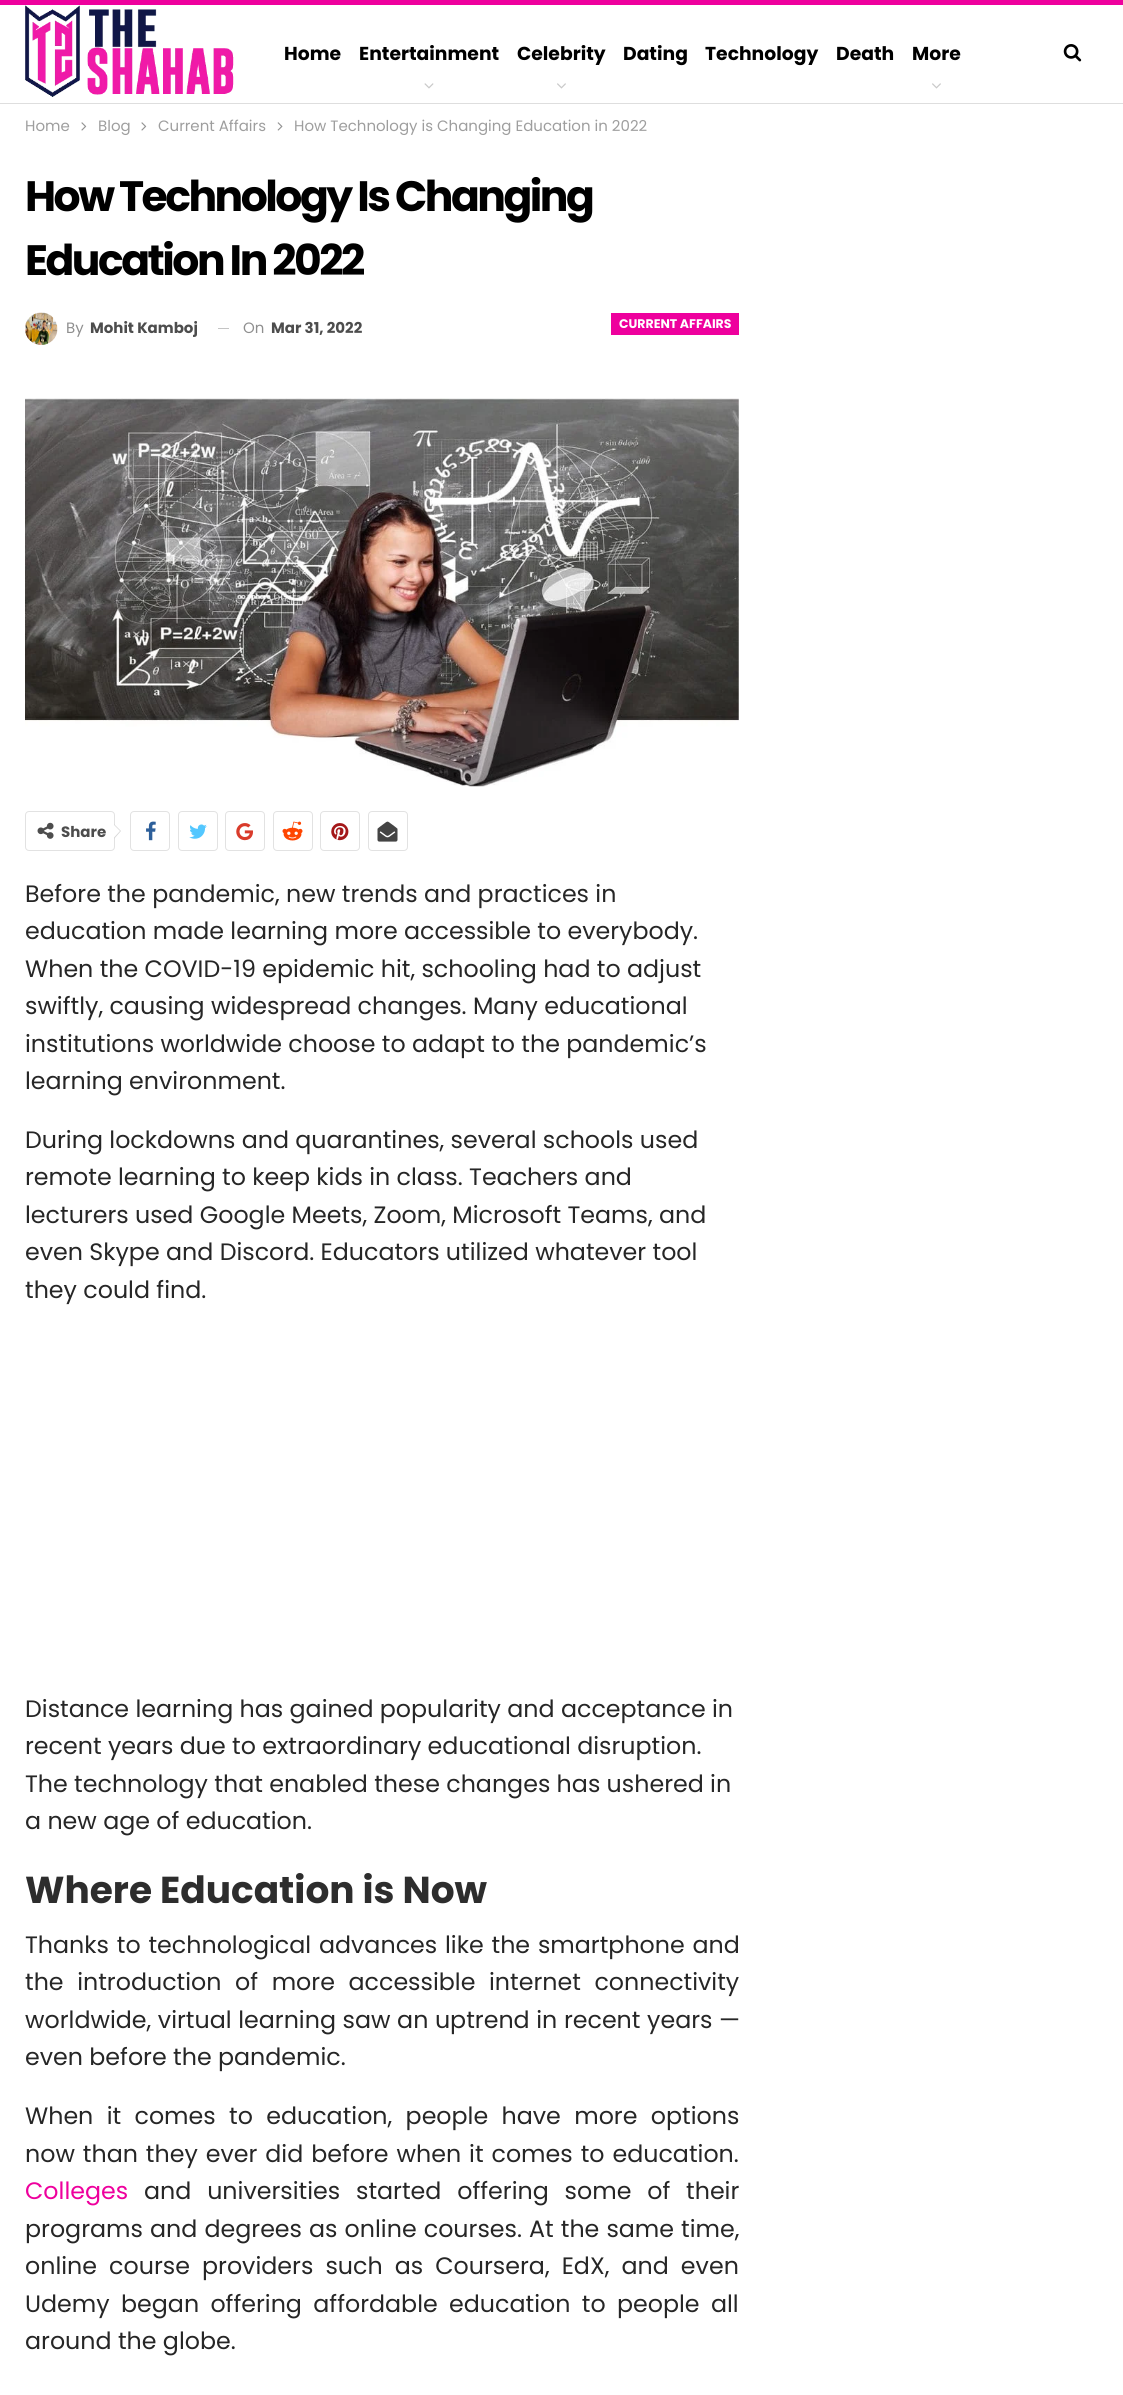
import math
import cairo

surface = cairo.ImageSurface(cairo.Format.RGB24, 1123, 2395)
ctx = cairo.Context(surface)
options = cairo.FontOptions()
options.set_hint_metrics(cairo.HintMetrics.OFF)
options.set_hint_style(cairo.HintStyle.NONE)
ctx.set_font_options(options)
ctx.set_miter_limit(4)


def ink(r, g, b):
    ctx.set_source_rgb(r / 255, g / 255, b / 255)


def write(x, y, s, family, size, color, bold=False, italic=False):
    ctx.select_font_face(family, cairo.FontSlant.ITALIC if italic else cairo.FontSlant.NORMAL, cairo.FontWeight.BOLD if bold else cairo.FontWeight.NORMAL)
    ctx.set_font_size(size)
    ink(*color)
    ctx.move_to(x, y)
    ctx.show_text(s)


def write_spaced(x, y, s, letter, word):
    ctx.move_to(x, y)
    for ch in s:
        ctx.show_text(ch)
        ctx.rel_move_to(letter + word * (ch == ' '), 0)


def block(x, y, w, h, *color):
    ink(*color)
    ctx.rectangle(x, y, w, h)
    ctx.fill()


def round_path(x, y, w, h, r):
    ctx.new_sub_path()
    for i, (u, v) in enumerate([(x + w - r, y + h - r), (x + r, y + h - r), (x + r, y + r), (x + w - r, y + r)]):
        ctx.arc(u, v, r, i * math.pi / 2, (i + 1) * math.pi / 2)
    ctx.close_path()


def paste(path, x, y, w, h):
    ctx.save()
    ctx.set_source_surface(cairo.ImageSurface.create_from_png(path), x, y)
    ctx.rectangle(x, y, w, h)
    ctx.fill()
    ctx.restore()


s1 = dict(family="Poppins", size=18.75, color=(0, 0, 0), bold=True)
s2 = dict(family="Poppins", size=15, color=(158, 158, 158))
s3 = dict(family="Poppins", size=15, color=(143, 143, 143))
s4 = dict(family="Poppins", size=15, color=(77, 77, 77), bold=True)
s5 = dict(family="Poppins", size=12.5, color=(255, 255, 255), bold=True)
s6 = dict(family="Poppins", size=23.75, color=(38, 38, 38))
s7 = dict(family="Poppins", size=37.5, color=(45, 45, 45), bold=True)
s8 = dict(family="Poppins", size=23.75, color=(238, 0, 157))

ink(255, 255, 255)
ctx.paint()
block(0, 0, 1123, 5, 238, 0, 157)
block(0, 103, 1123, 1, 222, 222, 222)
paste("pic1.png", 25, 5, 209, 92)
write(284, 60, "Home", **s1)
write(359, 60, "Entertainment", **s1)
paste("pic2.png", 424, 83, 10, 6)
write(517, 60, "Celebrity", **s1)
paste("pic3.png", 557, 83, 9, 6)
write(623, 60, "Dating", **s1)
write(705, 60, "Technology", **s1)
write(836, 60, "Death", **s1)
write(912, 60, "More", **s1)
paste("pic3.png", 932, 83, 9, 6)
paste("pic4.png", 1063, 44, 19, 18)
write(25, 131, "Home", **s2)
paste("pic5.png", 81, 122, 6, 9)
write(98, 131, "Blog", **s2)
paste("pic5.png", 141, 122, 6, 9)
write(158, 131, "Current Affairs", **s2)
paste("pic6.png", 277, 122, 6, 9)
write(294, 131, "How Technology is Changing Education in 2022", **s2)
ctx.select_font_face("Poppins", cairo.FontSlant.NORMAL, cairo.FontWeight.BOLD)
ctx.set_font_size(42.5)
ink(0, 0, 0)
write_spaced(25, 211, "How Technology Is Changing", -2.5, 0)
write_spaced(25, 275, "Education In 2022", -2.5, 0)
paste("pic7.png", 25, 312, 33, 33)
write(66, 333, "By", **s3)
write(90, 333, "Mohit Kamboj", **s4)
block(218, 328, 11, 1, 196, 196, 196)
write(243, 333, "On", **s3)
write(271, 333, "Mar 31, 2022", **s4)
block(611, 313, 128, 22, 238, 0, 157)
write(619, 328, "CURRENT AFFAIRS", **s5)
paste("pic8.png", 25, 398, 714, 389)
round_path(25.5, 811.5, 89, 39, 3.5)
ink(226, 226, 226)
ctx.set_line_width(1)
ctx.stroke()
paste("pic9.png", 37, 822, 17, 17)
write(61, 837, "Share", **s4)
ink(215, 215, 215)
ctx.new_path()
ctx.move_to(114, 839)
ctx.line_to(114, 824)
ctx.line_to(121, 831)
ctx.close_path()
ctx.fill()
ink(255, 255, 255)
ctx.new_path()
ctx.move_to(114, 837.5)
ctx.line_to(114, 825)
ctx.line_to(120, 831)
ctx.close_path()
ctx.fill()
round_path(130.5, 811.5, 39, 39, 3.5)
ink(226, 226, 226)
ctx.stroke()
paste("pic10.png", 146, 821, 10, 20)
round_path(178.5, 811.5, 39, 39, 3.5)
ctx.stroke()
paste("pic11.png", 189, 824, 18, 15)
round_path(225.5, 811.5, 39, 39, 3.5)
ctx.stroke()
paste("pic12.png", 236, 823, 17, 18)
round_path(273.5, 811.5, 39, 39, 3.5)
ctx.stroke()
paste("pic13.png", 282, 821, 21, 20)
round_path(320.5, 811.5, 39, 39, 3.5)
ctx.stroke()
paste("pic14.png", 331, 823, 18, 18)
round_path(368.5, 811.5, 39, 39, 3.5)
ctx.stroke()
paste("pic15.png", 377, 821, 21, 21)
write(25, 902, "Before the pandemic, new trends and practices in", **s6)
write(25, 939, "education made learning more accessible to everybody.", **s6)
write(25, 977, "When the COVID-19 epidemic hit, schooling had to adjust", **s6)
write(25, 1014, "swiftly, causing widespread changes. Many educational", **s6)
write(25, 1052, "institutions worldwide choose to adapt to the pandemic’s", **s6)
write(25, 1089, "learning environment.", **s6)
write(25, 1148, "During lockdowns and quarantines, several schools used", **s6)
write(25, 1185, "remote learning to keep kids in class. Teachers and", **s6)
write(25, 1223, "lecturers used Google Meets, Zoom, Microsoft Teams, and", **s6)
write(25, 1260, "even Skype and Discord. Educators utilized whatever tool", **s6)
write(25, 1298, "they could find.", **s6)
write(25, 1717, "Distance learning has gained popularity and acceptance in", **s6)
write(25, 1754, "recent years due to extraordinary educational disruption.", **s6)
write(25, 1792, "The technology that enabled these changes has ushered in", **s6)
write(25, 1829, "a new age of education.", **s6)
write(25, 1903, "Where Education is Now", **s7)
ctx.select_font_face("Poppins")
ctx.set_font_size(23.75)
ink(38, 38, 38)
write_spaced(25, 1953, "Thanks to technological advances like the smartphone and", 0, 1.5)
write_spaced(25, 1990, "the introduction of more accessible internet connectivity", 0, 7.25)
write_spaced(25, 2028, "worldwide, virtual learning saw an uptrend in recent years —", 0, 0.25)
write(25, 2065, "even before the pandemic.", **s6)
write_spaced(25, 2124, "When it comes to education, people have more options", 0, 7)
write_spaced(25, 2162, "now than they ever did before when it comes to education.", 0, 1.6)
write(25, 2199, "Colleges", **s8)
ink(38, 38, 38)
write_spaced(144, 2199, "and universities started offering some of their", 0, 9.5)
write_spaced(25, 2237, "programs and degrees as online courses. At the same time,", 0, 0.75)
write_spaced(25, 2274, "online course providers such as Coursera, EdX, and even", 0, 5.75)
write_spaced(25, 2312, "Udemy began offering affordable education to people all", 0, 5)
write(25, 2349, "around the globe.", **s6)
surface.write_to_png("screenshot.png")
